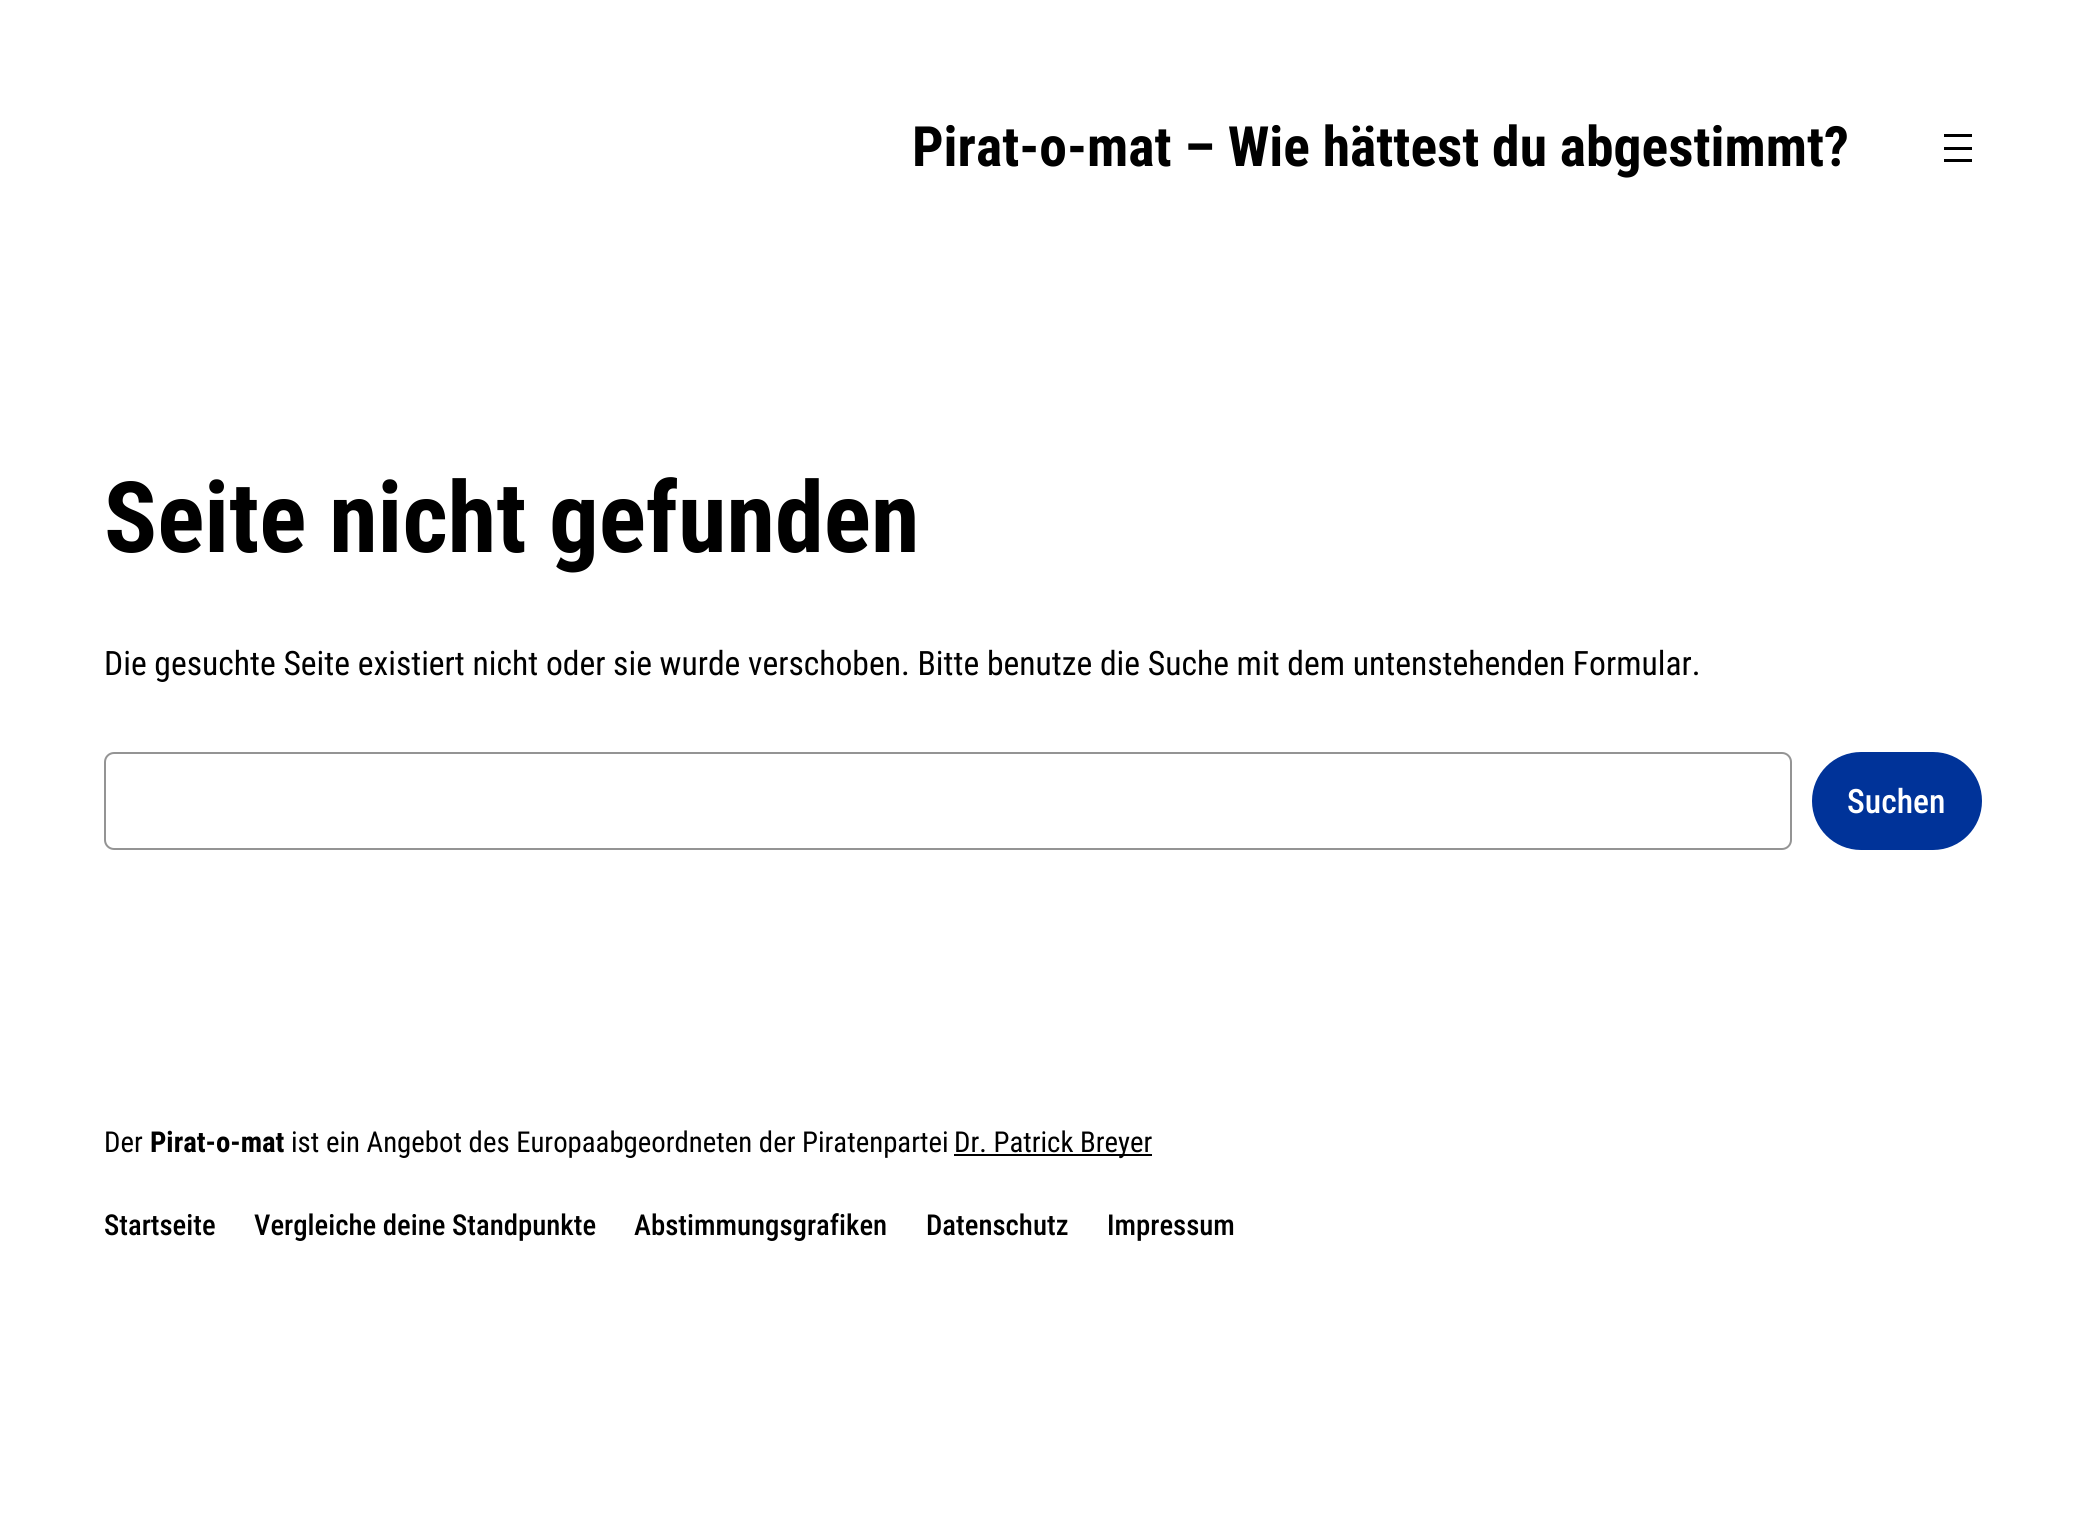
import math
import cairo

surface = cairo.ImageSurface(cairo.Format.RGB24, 2086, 1535)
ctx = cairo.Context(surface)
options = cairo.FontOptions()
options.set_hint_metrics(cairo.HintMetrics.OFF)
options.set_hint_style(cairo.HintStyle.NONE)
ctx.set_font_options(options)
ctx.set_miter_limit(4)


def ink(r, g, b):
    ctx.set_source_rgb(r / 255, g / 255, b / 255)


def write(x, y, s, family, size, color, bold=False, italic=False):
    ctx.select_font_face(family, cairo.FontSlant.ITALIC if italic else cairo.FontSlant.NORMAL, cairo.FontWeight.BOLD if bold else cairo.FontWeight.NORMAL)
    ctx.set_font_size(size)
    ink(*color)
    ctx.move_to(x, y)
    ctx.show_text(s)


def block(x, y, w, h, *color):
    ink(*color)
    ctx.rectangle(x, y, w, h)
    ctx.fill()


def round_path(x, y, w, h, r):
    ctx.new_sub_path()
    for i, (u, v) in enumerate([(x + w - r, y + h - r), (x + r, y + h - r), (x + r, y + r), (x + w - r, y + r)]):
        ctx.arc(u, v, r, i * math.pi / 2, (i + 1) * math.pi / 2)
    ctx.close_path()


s1 = dict(family="Roboto Condensed", size=55.6, color=(0, 0, 0), bold=True)
s2 = dict(family="Roboto Condensed", size=98.5, color=(0, 0, 0), bold=True)
s3 = dict(family="Roboto Condensed", size=33.6, color=(0, 0, 0))
s4 = dict(family="Roboto Condensed Medium", size=33.6, color=(255, 255, 255))
s5 = dict(family="Roboto Condensed", size=28.8, color=(0, 0, 0))
s6 = dict(family="Roboto Condensed", size=28.8, color=(0, 0, 0), bold=True)
s7 = dict(family="Roboto Condensed Medium", size=28.8, color=(0, 0, 0))

ink(255, 255, 255)
ctx.paint()
write(912, 166, "Pirat-o-mat – Wie hättest du abgestimmt?", **s1)
block(1944, 134, 28, 3, 0, 0, 0)
block(1944, 147, 28, 3, 0, 0, 0)
block(1944, 159, 28, 3, 0, 0, 0)
write(104, 552, "Seite nicht gefunden", **s2)
write(104, 675, "Die gesuchte Seite existiert nicht oder sie wurde verschoben. Bitte benutze die Suche mit dem untenstehenden Formular.", **s3)
round_path(105, 753, 1686, 96, 9)
ink(148, 148, 148)
ctx.stroke()
ink(0, 51, 153)
round_path(1814, 754, 166, 94, 47)
ctx.fill_preserve()
ctx.set_line_width(4)
ctx.stroke()
write(1847, 813, "Suchen", **s4)
write(104, 1152, "Der", **s5)
write(150, 1152, "Pirat-o-mat", **s6)
write(291, 1152, "ist ein Angebot des Europaabgeordneten der Piratenpartei", **s5)
block(954, 1154, 198, 2, 0, 0, 0)
write(954, 1152, "Dr. Patrick Breyer", **s5)
write(104, 1235, "Startseite", **s7)
write(254, 1235, "Vergleiche deine Standpunkte", **s7)
write(634, 1235, "Abstimmungsgrafiken", **s7)
write(926, 1235, "Datenschutz", **s7)
write(1107, 1235, "Impressum", **s7)
surface.write_to_png("screenshot.png")
